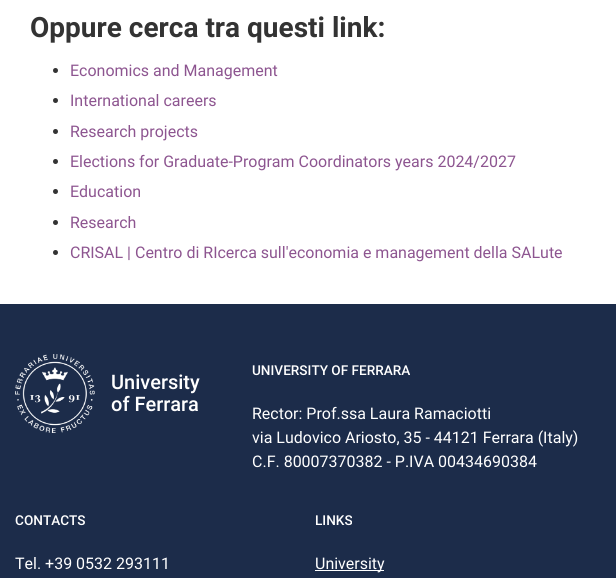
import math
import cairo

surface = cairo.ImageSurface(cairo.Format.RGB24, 616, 578)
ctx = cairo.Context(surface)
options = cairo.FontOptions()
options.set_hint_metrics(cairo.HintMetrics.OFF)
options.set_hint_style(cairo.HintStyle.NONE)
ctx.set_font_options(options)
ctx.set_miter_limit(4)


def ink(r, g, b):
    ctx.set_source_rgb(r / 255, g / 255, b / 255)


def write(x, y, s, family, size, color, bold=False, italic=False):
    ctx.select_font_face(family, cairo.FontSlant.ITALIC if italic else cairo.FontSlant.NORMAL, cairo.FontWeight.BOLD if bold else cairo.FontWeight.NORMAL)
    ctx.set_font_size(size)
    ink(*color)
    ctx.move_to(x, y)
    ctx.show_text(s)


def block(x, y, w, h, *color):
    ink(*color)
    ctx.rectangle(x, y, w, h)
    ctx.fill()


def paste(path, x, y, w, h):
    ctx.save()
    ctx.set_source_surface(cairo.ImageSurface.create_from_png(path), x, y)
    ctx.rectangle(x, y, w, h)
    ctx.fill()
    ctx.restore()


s1 = dict(family="Roboto", size=28, color=(51, 51, 51), bold=True)
s2 = dict(family="Roboto", size=16, color=(141, 85, 144))
s3 = dict(family="Roboto Medium", size=20, color=(255, 255, 255))
s4 = dict(family="Roboto Medium", size=13.6, color=(255, 255, 255))
s5 = dict(family="Roboto", size=16, color=(255, 255, 255))

ink(255, 255, 255)
ctx.paint()
write(30, 37, "Oppure cerca tra questi link:", **s1)
ctx.new_path()
ctx.arc(55.5, 70.5, 2.5, 0, 2 * math.pi)
ctx.fill()
write(70, 76, "Economics and Management", **s2)
ink(51, 51, 51)
ctx.new_path()
ctx.arc(55.5, 100.5, 2.5, 0, 2 * math.pi)
ctx.fill()
write(70, 106, "International careers", **s2)
ink(51, 51, 51)
ctx.new_path()
ctx.arc(55.5, 131.5, 2.5, 0, 2 * math.pi)
ctx.fill()
write(70, 137, "Research projects", **s2)
ink(51, 51, 51)
ctx.new_path()
ctx.arc(55.5, 161.5, 2.5, 0, 2 * math.pi)
ctx.fill()
write(70, 167, "Elections for Graduate-Program Coordinators years 2024/2027", **s2)
ink(51, 51, 51)
ctx.new_path()
ctx.arc(55.5, 191.5, 2.5, 0, 2 * math.pi)
ctx.fill()
write(70, 197, "Education", **s2)
ink(51, 51, 51)
ctx.new_path()
ctx.arc(55.5, 222.5, 2.5, 0, 2 * math.pi)
ctx.fill()
write(70, 228, "Research", **s2)
ink(51, 51, 51)
ctx.new_path()
ctx.arc(55.5, 252.5, 2.5, 0, 2 * math.pi)
ctx.fill()
write(70, 258, "CRISAL | Centro di RIcerca sull'economia e management della SALute", **s2)
block(0, 304, 616, 274, 28, 44, 74)
paste("pic1.png", 15, 354, 80, 79)
write(111, 389, "University", **s3)
write(111, 411, "of Ferrara", **s3)
write(252, 375, "UNIVERSITY OF FERRARA", **s4)
write(252, 419, "Rector: Prof.ssa Laura Ramaciotti", **s5)
write(252, 443, "via Ludovico Ariosto, 35 - 44121 Ferrara (Italy)", **s5)
write(252, 467, "C.F. 80007370382 - P.IVA 00434690384", **s5)
write(15, 525, "CONTACTS", **s4)
write(15, 569, "Tel. +39 0532 293111", **s5)
write(315, 525, "LINKS", **s4)
block(315, 570, 69, 1, 255, 255, 255)
write(315, 569, "University", **s5)
surface.write_to_png("screenshot.png")
